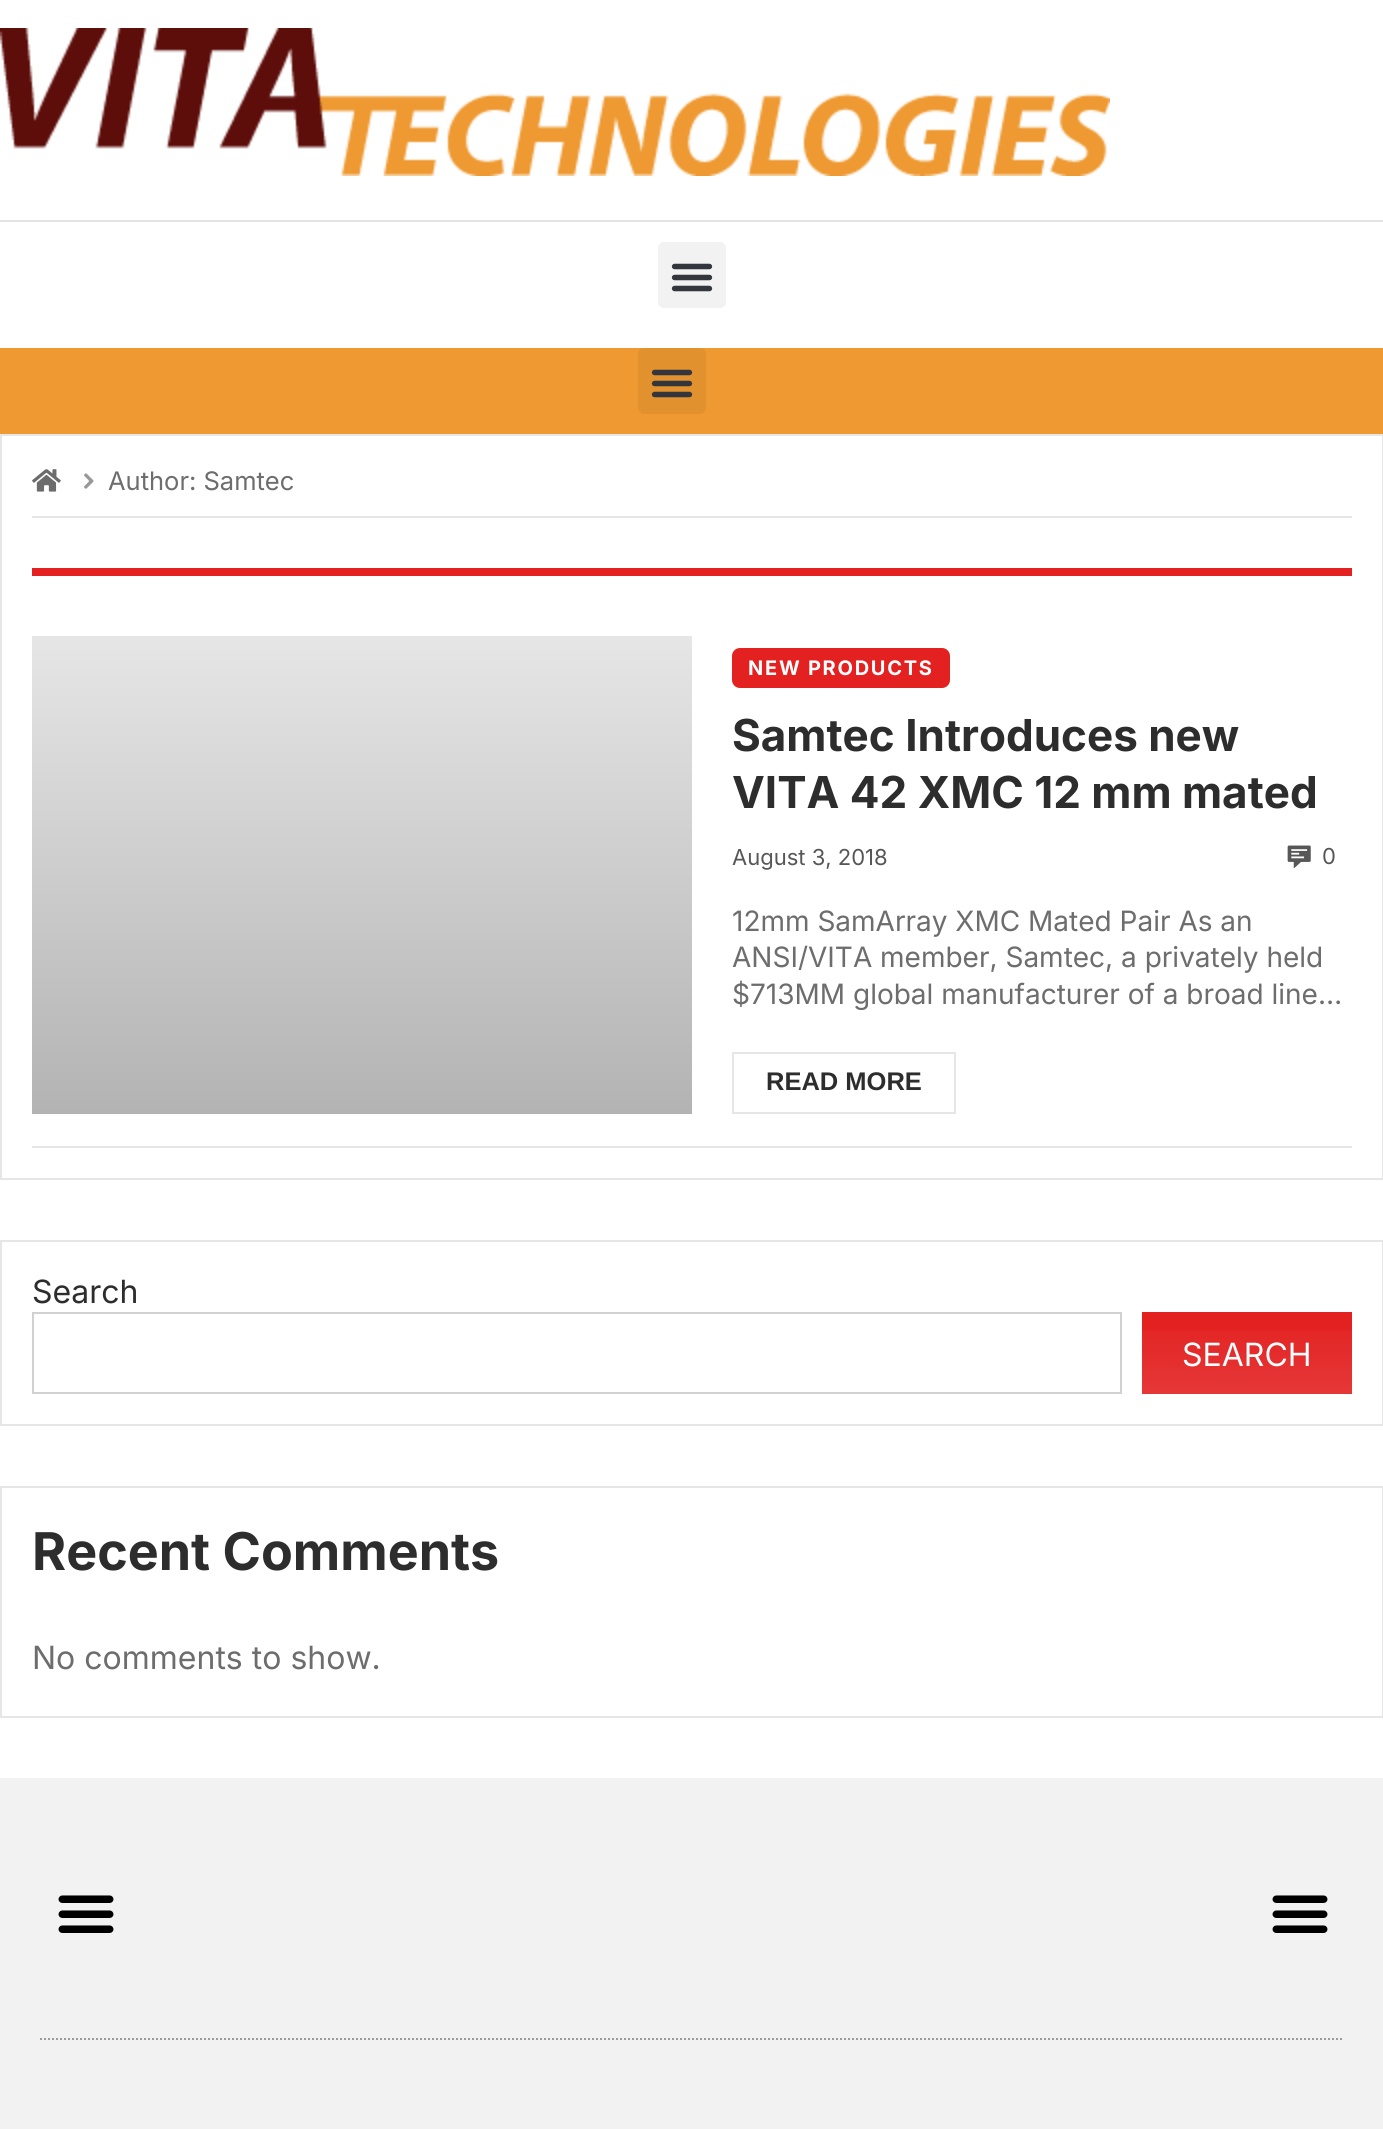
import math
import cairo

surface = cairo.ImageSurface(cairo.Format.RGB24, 1383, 2129)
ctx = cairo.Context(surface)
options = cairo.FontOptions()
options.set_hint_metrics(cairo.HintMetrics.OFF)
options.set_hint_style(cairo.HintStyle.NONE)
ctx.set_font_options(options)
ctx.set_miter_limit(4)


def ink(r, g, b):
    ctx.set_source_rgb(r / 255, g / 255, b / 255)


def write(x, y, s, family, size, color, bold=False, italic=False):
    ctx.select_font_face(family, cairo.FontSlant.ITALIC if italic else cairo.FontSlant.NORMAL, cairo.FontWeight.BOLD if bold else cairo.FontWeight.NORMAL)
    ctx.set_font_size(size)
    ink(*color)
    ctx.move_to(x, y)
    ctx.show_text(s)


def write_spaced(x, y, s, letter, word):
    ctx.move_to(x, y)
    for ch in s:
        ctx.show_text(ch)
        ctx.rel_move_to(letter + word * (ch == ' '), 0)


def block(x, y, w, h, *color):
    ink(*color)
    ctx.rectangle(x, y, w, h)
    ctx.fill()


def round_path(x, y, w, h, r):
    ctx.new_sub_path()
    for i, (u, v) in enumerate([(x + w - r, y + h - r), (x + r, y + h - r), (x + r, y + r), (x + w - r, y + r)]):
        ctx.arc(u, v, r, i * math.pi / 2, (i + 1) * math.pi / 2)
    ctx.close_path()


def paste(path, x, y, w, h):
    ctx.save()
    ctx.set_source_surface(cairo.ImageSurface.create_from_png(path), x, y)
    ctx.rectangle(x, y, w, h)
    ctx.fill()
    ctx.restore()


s1 = dict(family="Inter", size=25.5, color=(109, 109, 109))
s2 = dict(family="Inter", size=44, color=(45, 45, 45), bold=True)
s3 = dict(family="Inter", size=22, color=(87, 87, 87))
s4 = dict(family="Inter", size=28, color=(109, 109, 109))
s5 = dict(family="Liberation Sans", size=25.5, color=(45, 45, 45), bold=True)
s6 = dict(family="Inter", size=32, color=(45, 45, 45))
s7 = dict(family="Inter", size=32, color=(255, 255, 255))
s8 = dict(family="Inter", size=52, color=(45, 45, 45), bold=True)
s9 = dict(family="Inter", size=32, color=(109, 109, 109))

ink(255, 255, 255)
ctx.paint()
block(0, 220, 1383, 2, 227, 227, 227)
paste("pic1.png", 0, 28, 1110, 148)
ink(242, 242, 242)
round_path(658, 242, 68, 66, 6)
ctx.fill()
paste("pic2.png", 671, 263, 42, 29)
block(0, 348, 1383, 86, 238, 153, 49)
ink(226, 145, 47)
round_path(638, 348, 68, 66, 6)
ctx.fill()
paste("pic3.png", 651, 369, 42, 29)
ctx.rectangle(1, 435, 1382, 744)
ink(230, 230, 230)
ctx.stroke()
block(32, 516, 1320, 2, 230, 230, 230)
paste("pic4.png", 32, 469, 29, 23)
paste("pic5.png", 84, 473, 10, 16)
write(108, 490, "Author: Samtec", **s1)
block(32, 568, 1320, 8, 227, 33, 33)
gradient = cairo.LinearGradient(362, 636, 362, 1114)
gradient.add_color_stop_rgba(0, 0.902, 0.902, 0.902, 1)
gradient.add_color_stop_rgba(1, 0.702, 0.702, 0.702, 1)
ctx.set_source(gradient)
ctx.rectangle(32, 636, 660, 478)
ctx.fill()
ink(227, 33, 33)
round_path(732, 648, 218, 40, 8)
ctx.fill()
ctx.select_font_face("Inter", cairo.FontSlant.NORMAL, cairo.FontWeight.BOLD)
ctx.set_font_size(20)
ink(255, 255, 255)
write_spaced(748, 675, "NEW PRODUCTS", 1.75, 0)
write(732, 751, "Samtec Introduces new", **s2)
write(732, 808, "VITA 42 XMC 12 mm mated", **s2)
write(732, 865, "August 3, 2018", **s3)
paste("pic6.png", 1287, 845, 24, 23)
write(1322, 864, "0", **s3)
write(732, 931, "12mm SamArray XMC Mated Pair As an", **s4)
write(732, 967, "ANSI/VITA member, Samtec, a privately held", **s4)
write(732, 1004, "$713MM global manufacturer of a broad line…", **s4)
ctx.rectangle(733, 1053, 222, 60)
ink(230, 230, 230)
ctx.stroke()
write(766, 1090, "READ MORE", **s5)
block(32, 1146, 1320, 2, 230, 230, 230)
ctx.rectangle(1, 1241, 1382, 184)
ctx.stroke()
write(32, 1303, "Search", **s6)
ctx.rectangle(33, 1313, 1088, 80)
ink(209, 209, 209)
ctx.stroke()
block(1142, 1312, 210, 82, 227, 33, 33)
gradient = cairo.LinearGradient(1247, 1312, 1247, 1394)
gradient.add_color_stop_rgba(0, 1, 1, 1, 0)
gradient.add_color_stop_rgba(1, 1, 1, 1, 0.1)
ctx.set_source(gradient)
ctx.rectangle(1142, 1330, 210, 64)
ctx.fill()
write(1182, 1366, "SEARCH", **s7)
ctx.rectangle(1, 1487, 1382, 230)
ink(230, 230, 230)
ctx.stroke()
write(32, 1570, "Recent Comments", **s8)
write(32, 1669, "No comments to show.", **s9)
block(0, 1778, 1383, 351, 242, 242, 242)
ctx.new_path()
ctx.move_to(40, 2039)
ctx.line_to(1344, 2039)
ink(155, 155, 155)
ctx.set_dash([2, 2])
ctx.stroke()
paste("pic7.png", 58, 1895, 56, 38)
paste("pic7.png", 1272, 1895, 56, 38)
surface.write_to_png("screenshot.png")
